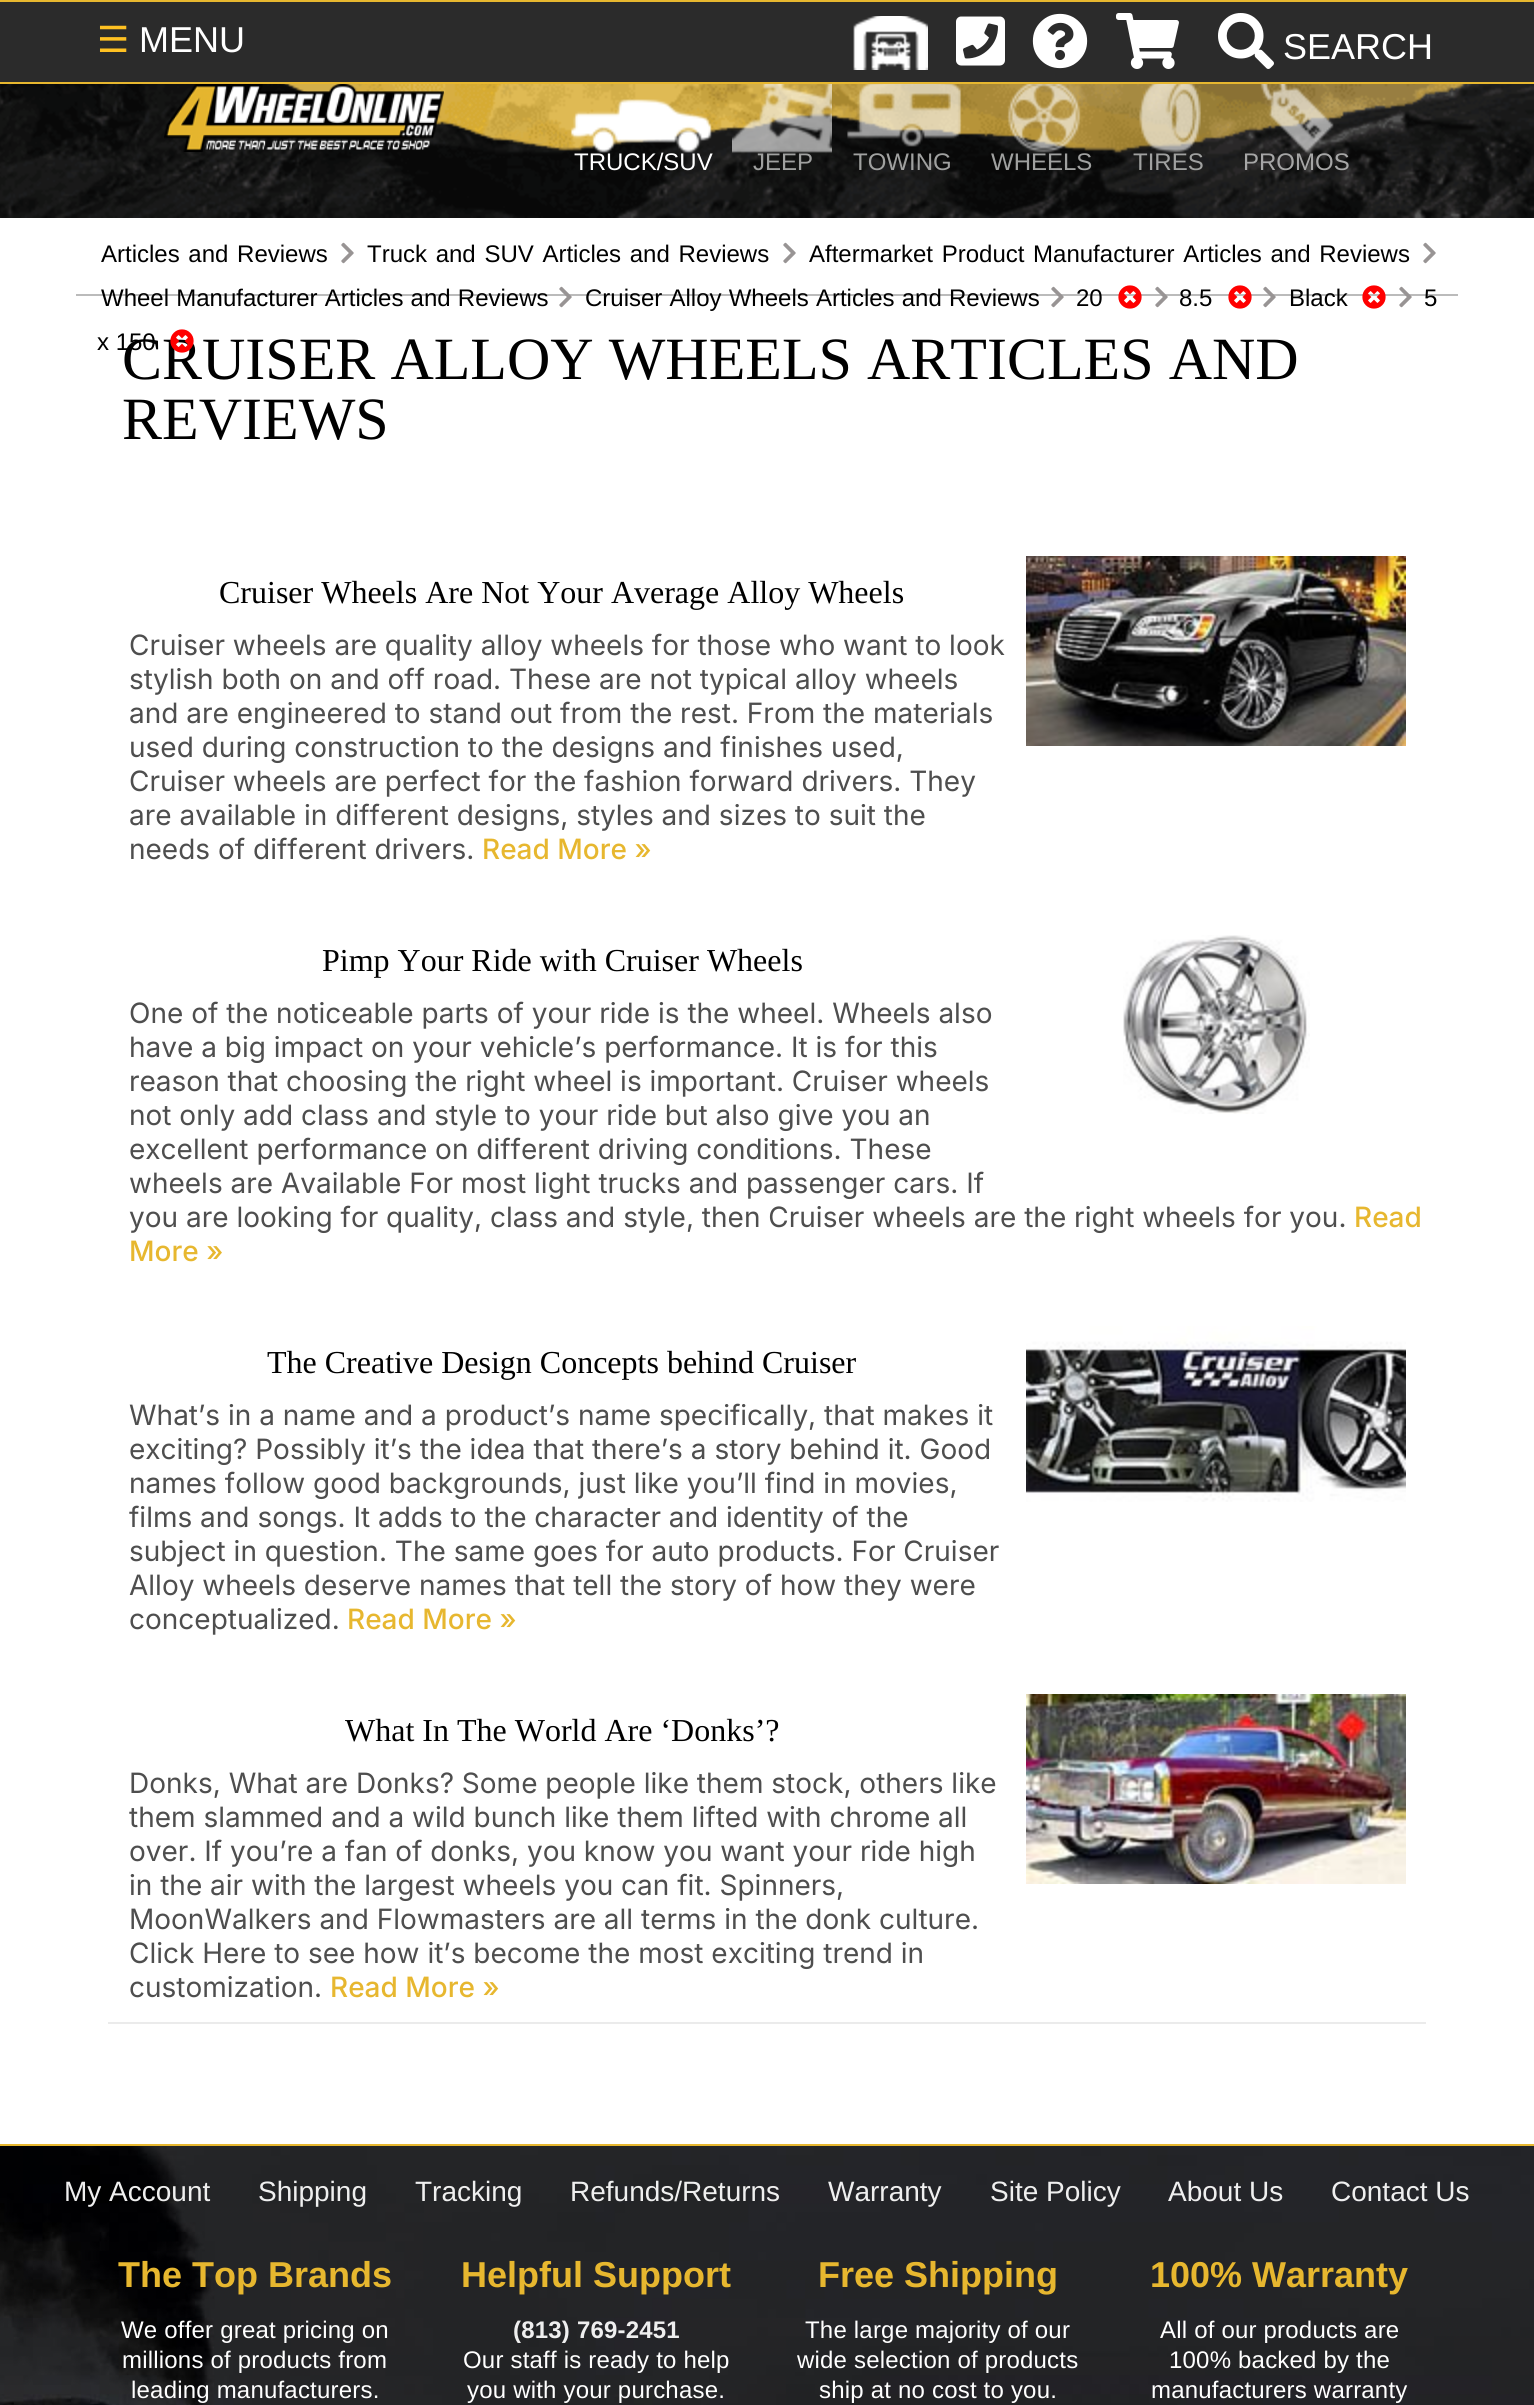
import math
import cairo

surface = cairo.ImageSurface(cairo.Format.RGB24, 1534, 2405)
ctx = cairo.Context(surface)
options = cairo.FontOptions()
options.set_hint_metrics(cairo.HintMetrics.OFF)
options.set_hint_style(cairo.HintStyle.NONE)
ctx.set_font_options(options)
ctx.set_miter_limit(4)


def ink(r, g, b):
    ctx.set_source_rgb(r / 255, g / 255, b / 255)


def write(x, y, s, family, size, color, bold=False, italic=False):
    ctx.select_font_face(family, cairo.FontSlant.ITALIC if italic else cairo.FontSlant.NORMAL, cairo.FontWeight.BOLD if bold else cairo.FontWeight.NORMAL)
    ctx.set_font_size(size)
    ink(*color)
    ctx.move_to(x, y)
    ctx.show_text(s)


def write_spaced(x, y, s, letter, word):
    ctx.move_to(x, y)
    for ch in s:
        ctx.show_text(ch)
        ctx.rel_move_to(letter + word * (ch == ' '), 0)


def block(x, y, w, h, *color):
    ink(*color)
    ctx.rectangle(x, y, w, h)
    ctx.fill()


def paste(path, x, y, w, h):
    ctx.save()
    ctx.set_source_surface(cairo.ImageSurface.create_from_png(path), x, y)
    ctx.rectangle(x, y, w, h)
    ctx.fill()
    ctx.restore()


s1 = dict(family="DejaVu Sans", size=36, color=(255, 193, 34))
s2 = dict(family="Liberation Sans", size=36, color=(255, 255, 255))
s3 = dict(family="Liberation Sans", size=24, color=(255, 255, 255))
s4 = dict(family="Liberation Sans", size=24, color=(160, 161, 160))
s5 = dict(family="Liberation Sans", size=24, color=(166, 166, 166))
s6 = dict(family="Liberation Sans", size=24, color=(0, 0, 0))
s7 = dict(family="Liberation Serif", size=60, color=(0, 0, 0))
s8 = dict(family="Liberation Serif", size=32, color=(0, 0, 0))
s9 = dict(family="Inter", size=28, color=(78, 78, 78))
s10 = dict(family="Inter Medium", size=28, color=(231, 183, 47))
s11 = dict(family="Liberation Sans", size=28, color=(239, 239, 239))
s12 = dict(family="Liberation Sans", size=36, color=(231, 183, 47), bold=True)

ink(255, 255, 255)
ctx.paint()
block(0, 2, 1534, 80, 43, 43, 43)
block(0, 0, 1534, 2, 231, 183, 47)
block(0, 82, 1534, 2, 231, 183, 47)
write(97, 52, "☰", **s1)
write(139, 52, "MENU", **s2)
paste("pic1.png", 853, 16, 75, 54)
paste("pic2.png", 956, 16, 49, 50)
paste("pic3.png", 1032, 13, 56, 56)
paste("pic4.png", 1116, 13, 63, 56)
paste("pic5.png", 1218, 13, 56, 56)
write(1283, 59, "SEARCH", **s2)
block(280, 84, 1186, 69, 231, 183, 47)
paste("pic6.png", 0, 84, 1534, 134)
paste("pic7.png", 164, 84, 280, 68)
paste("pic8.png", 570, 99, 142, 54)
write(574, 170, "TRUCK/SUV", **s3)
paste("pic9.png", 732, 84, 100, 69)
write(753, 170, "JEEP", **s4)
paste("pic10.png", 847, 84, 115, 63)
write(853, 170, "TOWING", **s4)
paste("pic11.png", 1007, 84, 74, 69)
write(991, 170, "WHEELS", **s4)
paste("pic12.png", 1139, 84, 62, 69)
write(1133, 170, "TIRES", **s4)
paste("pic13.png", 1260, 84, 74, 69)
write(1243, 170, "PROMOS", **s5)
block(76, 294, 1382, 2, 187, 187, 187)
ink(0, 0, 0)
write_spaced(101, 262, "Articles and Reviews", 0, 2)
paste("pic14.png", 341, 242, 13, 22)
write_spaced(367, 262, "Truck and SUV Articles and Reviews", 0, 2)
paste("pic14.png", 783, 242, 13, 22)
write_spaced(809, 262, "Aftermarket Product Manufacturer Articles and Reviews", 0, 2)
paste("pic14.png", 1423, 242, 13, 22)
write_spaced(101, 306, "Wheel Manufacturer Articles and Reviews", 0, 0.5)
paste("pic15.png", 559, 286, 13, 22)
write_spaced(585, 306, "Cruiser Alloy Wheels Articles and Reviews", 0, 0.5)
paste("pic15.png", 1051, 286, 13, 22)
paste("pic15.png", 1155, 286, 13, 22)
paste("pic15.png", 1263, 286, 13, 22)
write(1289, 306, "Black", **s6)
paste("pic16.png", 1362, 285, 24, 24)
paste("pic15.png", 1399, 286, 13, 22)
write(1424, 306, "5", **s6)
write(122, 379, "CRUISER ALLOY WHEELS ARTICLES AND", **s7)
write(97, 350, "x 150", **s6)
paste("pic17.png", 170, 329, 24, 24)
write(1076, 306, "20", **s6)
paste("pic16.png", 1118, 285, 24, 24)
write(1179, 306, "8.5", **s6)
paste("pic16.png", 1228, 285, 24, 24)
write(122, 439, "REVIEWS", **s7)
write(219, 603, "Cruiser Wheels Are Not Your Average Alloy Wheels", **s8)
paste("pic18.png", 1026, 556, 380, 190)
write(129, 655, "Cruiser wheels are quality alloy wheels for those who want to look", **s9)
write(129, 689, "stylish both on and off road. These are not typical alloy wheels", **s9)
write(129, 723, "and are engineered to stand out from the rest. From the materials", **s9)
write(129, 757, "used during construction to the designs and finishes used,", **s9)
write(129, 791, "Cruiser wheels are perfect for the fashion forward drivers. They", **s9)
write(129, 825, "are available in different designs, styles and sizes to suit the", **s9)
write(129, 859, "needs of different drivers.", **s9)
write(482, 859, "Read More »", **s10)
write(322, 971, "Pimp Your Ride with Cruiser Wheels", **s8)
paste("pic19.png", 1123, 935, 187, 179)
write(129, 1023, "One of the noticeable parts of your ride is the wheel. Wheels also", **s9)
write(129, 1057, "have a big impact on your vehicle’s performance. It is for this", **s9)
write(129, 1091, "reason that choosing the right wheel is important. Cruiser wheels", **s9)
write(129, 1125, "not only add class and style to your ride but also give you an", **s9)
write(129, 1159, "excellent performance on different driving conditions. These", **s9)
write(129, 1193, "wheels are Available For most light trucks and passenger cars. If", **s9)
write(129, 1227, "you are looking for quality, class and style, then Cruiser wheels are the right wheels for you.", **s9)
write(1354, 1227, "Read", **s10)
write(129, 1261, "More »", **s10)
write(267, 1373, "The Creative Design Concepts behind Cruiser", **s8)
paste("pic20.png", 1026, 1326, 380, 176)
write(129, 1425, "What’s in a name and a product’s name specifically, that makes it", **s9)
write(129, 1459, "exciting? Possibly it’s the idea that there’s a story behind it. Good", **s9)
write(129, 1493, "names follow good backgrounds, just like you’ll find in movies,", **s9)
write(129, 1527, "films and songs. It adds to the character and identity of the", **s9)
write(129, 1561, "subject in question. The same goes for auto products. For Cruiser", **s9)
write(129, 1595, "Alloy wheels deserve names that tell the story of how they were", **s9)
write(129, 1629, "conceptualized.", **s9)
write(347, 1629, "Read More »", **s10)
write(345, 1741, "What In The World Are ‘Donks’?", **s8)
paste("pic21.png", 1026, 1694, 380, 190)
write(129, 1793, "Donks, What are Donks? Some people like them stock, others like", **s9)
write(129, 1827, "them slammed and a wild bunch like them lifted with chrome all", **s9)
write(129, 1861, "over. If you’re a fan of donks, you know you want your ride high", **s9)
write(129, 1895, "in the air with the largest wheels you can fit. Spinners,", **s9)
write(129, 1929, "MoonWalkers and Flowmasters are all terms in the donk culture.", **s9)
write(129, 1963, "Click Here to see how it’s become the most exciting trend in", **s9)
write(129, 1997, "customization.", **s9)
write(330, 1997, "Read More »", **s10)
block(108, 2022, 1318, 2, 235, 235, 235)
paste("pic22.png", 0, 2146, 1534, 259)
block(0, 2144, 1534, 2, 231, 183, 47)
write(64, 2201, "My Account", **s11)
write(258, 2201, "Shipping", **s11)
write(415, 2201, "Tracking", **s11)
write(570, 2201, "Refunds/Returns", **s11)
write(828, 2201, "Warranty", **s11)
write(990, 2201, "Site Policy", **s11)
write(1168, 2201, "About Us", **s11)
write(1331, 2201, "Contact Us", **s11)
write(118, 2287, "The Top Brands", **s12)
ctx.select_font_face("Liberation Sans")
ctx.set_font_size(24)
ink(255, 255, 255)
write_spaced(121, 2338, "We offer great pricing on", 0.2, 0)
write_spaced(122, 2368, "millions of products from", 0.2, 0)
write_spaced(131, 2398, "leading manufacturers.", 0.2, 0)
write(461, 2287, "Helpful Support", **s12)
ctx.set_font_size(24)
ink(239, 239, 239)
write_spaced(513, 2338, "(813) 769-2451", 0.2, 0)
ctx.select_font_face("Liberation Sans")
ink(255, 255, 255)
write_spaced(463, 2368, "Our staff is ready to help", 0.2, 0)
write_spaced(467, 2398, "you with your purchase.", 0.2, 0)
write(818, 2287, "Free Shipping", **s12)
ctx.select_font_face("Liberation Sans")
ctx.set_font_size(24)
ink(255, 255, 255)
write_spaced(805, 2338, "The large majority of our", 0.2, 0)
write_spaced(797, 2368, "wide selection of products", 0.2, 0)
write_spaced(819, 2398, "ship at no cost to you.", 0.2, 0)
write(1150, 2287, "100% Warranty", **s12)
ctx.select_font_face("Liberation Sans")
ctx.set_font_size(24)
ink(255, 255, 255)
write_spaced(1160, 2338, "All of our products are", 0.2, 0)
write_spaced(1169, 2368, "100% backed by the", 0.2, 0)
write_spaced(1151, 2398, "manufacturers warranty", 0.2, 0)
surface.write_to_png("screenshot.png")
